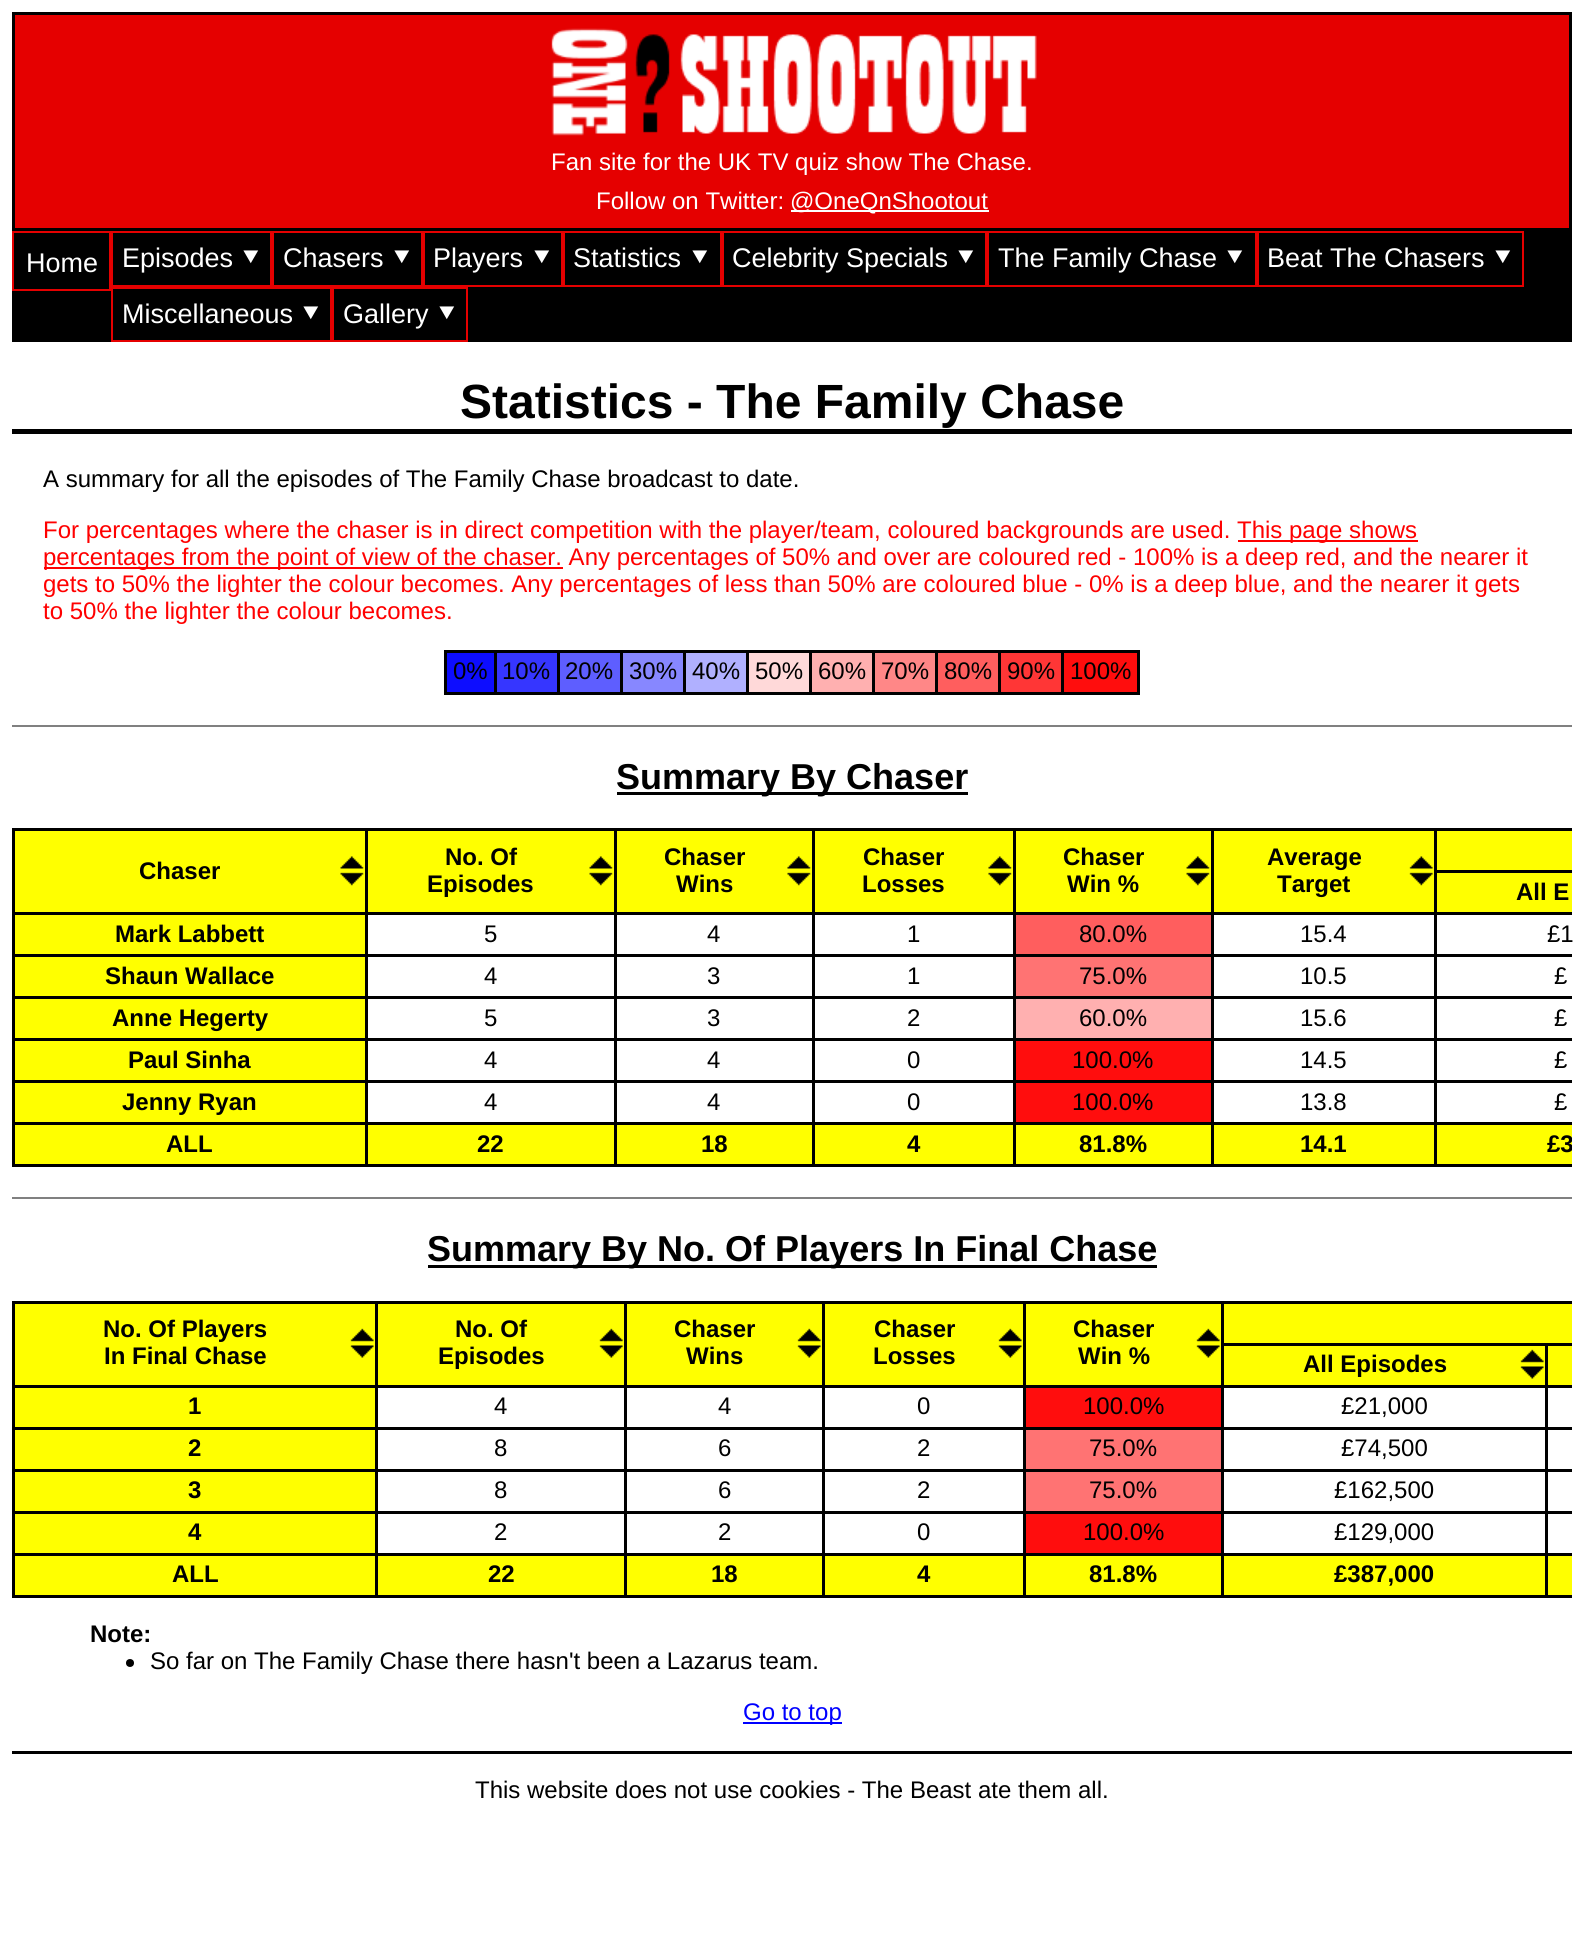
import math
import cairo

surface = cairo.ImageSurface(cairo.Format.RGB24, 1584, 1958)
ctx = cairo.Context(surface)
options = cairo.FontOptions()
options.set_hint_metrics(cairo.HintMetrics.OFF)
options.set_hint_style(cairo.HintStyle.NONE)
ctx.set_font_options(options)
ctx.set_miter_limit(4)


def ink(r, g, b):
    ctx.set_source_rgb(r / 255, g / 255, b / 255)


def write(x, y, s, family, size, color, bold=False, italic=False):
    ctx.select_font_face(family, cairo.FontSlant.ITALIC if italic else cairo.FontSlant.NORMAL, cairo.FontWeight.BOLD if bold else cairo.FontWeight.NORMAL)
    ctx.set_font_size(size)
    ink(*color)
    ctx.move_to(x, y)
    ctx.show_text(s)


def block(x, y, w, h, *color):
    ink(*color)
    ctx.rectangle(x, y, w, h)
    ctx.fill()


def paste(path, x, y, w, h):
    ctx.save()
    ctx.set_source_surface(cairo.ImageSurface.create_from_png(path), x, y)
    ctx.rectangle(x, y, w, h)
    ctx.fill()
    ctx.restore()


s1 = dict(family="Liberation Sans", size=24, color=(255, 255, 255))
s2 = dict(family="Liberation Sans", size=27, color=(255, 255, 255))
s3 = dict(family="FreeSans", size=27, color=(255, 255, 255))
s4 = dict(family="Liberation Sans", size=48, color=(0, 0, 0), bold=True)
s5 = dict(family="Liberation Sans", size=24, color=(0, 0, 0))
s6 = dict(family="Liberation Sans", size=24, color=(255, 0, 0))
s7 = dict(family="Liberation Sans", size=36, color=(0, 0, 0), bold=True)
s8 = dict(family="Liberation Sans", size=24, color=(0, 0, 0), bold=True)
s9 = dict(family="Liberation Sans", size=24, color=(0, 0, 255))

ink(255, 255, 255)
ctx.paint()
ink(229, 0, 0)
ctx.rectangle(13.5, 13.5, 1557, 216)
ctx.fill_preserve()
ink(0, 0, 0)
ctx.set_line_width(3)
ctx.stroke()
paste("pic1.png", 551, 28, 486, 108)
write(551, 170, "Fan site for the UK TV quiz show The Chase.", **s1)
write(596, 209, "Follow on Twitter:", **s1)
block(791, 210, 198, 2, 255, 255, 255)
write(790, 209, "@OneQnShootout", **s1)
block(12, 231, 1560, 111, 0, 0, 0)
ctx.rectangle(13, 232, 97, 58)
ink(229, 0, 0)
ctx.set_line_width(2)
ctx.stroke()
write(26, 272, "Home", **s2)
ctx.rectangle(112, 232, 159, 54)
ink(229, 0, 0)
ctx.stroke()
write(122, 267, "Episodes", **s2)
write(240, 267, "⯆", **s3)
ctx.rectangle(273, 232, 149, 54)
ink(229, 0, 0)
ctx.stroke()
write(283, 267, "Chasers", **s2)
write(391, 267, "⯆", **s3)
ctx.rectangle(424, 232, 138, 54)
ink(229, 0, 0)
ctx.stroke()
write(433, 267, "Players", **s2)
write(531, 267, "⯆", **s3)
ctx.rectangle(564, 232, 157, 54)
ink(229, 0, 0)
ctx.stroke()
write(573, 267, "Statistics", **s2)
write(689, 267, "⯆", **s3)
ctx.rectangle(723, 232, 263, 54)
ink(229, 0, 0)
ctx.stroke()
write(732, 267, "Celebrity Specials", **s2)
write(955, 267, "⯆", **s3)
ctx.rectangle(988, 232, 268, 54)
ink(229, 0, 0)
ctx.stroke()
write(998, 267, "The Family Chase", **s2)
write(1224, 267, "⯆", **s3)
ctx.rectangle(1258, 232, 265, 54)
ink(229, 0, 0)
ctx.stroke()
write(1267, 267, "Beat The Chasers", **s2)
write(1492, 267, "⯆", **s3)
ctx.rectangle(112, 288, 219, 53)
ink(229, 0, 0)
ctx.stroke()
write(122, 323, "Miscellaneous", **s2)
write(300, 323, "⯆", **s3)
ctx.rectangle(333, 288, 134, 53)
ink(229, 0, 0)
ctx.stroke()
write(343, 323, "Gallery", **s2)
write(436, 323, "⯆", **s3)
block(12, 429, 1560, 5, 0, 0, 0)
write(460, 418, "Statistics - The Family Chase", **s4)
write(43, 487, "A summary for all the episodes of The Family Chase broadcast to date.", **s5)
write(43, 538, "For percentages where the chaser is in direct competition with the player/team, coloured backgrounds are used.", **s6)
block(1238, 540, 180, 2, 255, 0, 0)
write(1237, 538, "This page shows", **s6)
block(44, 567, 519, 2, 255, 0, 0)
write(43, 565, "percentages from the point of view of the chaser. Any percentages of 50% and over are coloured red - 100% is a deep red, and the nearer it", **s6)
write(43, 592, "gets to 50% the lighter the colour becomes. Any percentages of less than 50% are coloured blue - 0% is a deep blue, and the nearer it gets", **s6)
write(43, 619, "to 50% the lighter the colour becomes.", **s6)
block(444, 650, 696, 3, 0, 0, 0)
block(1137, 650, 3, 45, 0, 0, 0)
block(444, 692, 696, 3, 0, 0, 0)
block(444, 650, 3, 45, 0, 0, 0)
block(447, 653, 47, 39, 13, 13, 255)
write(453, 679, "0%", **s5)
block(497, 653, 60, 39, 54, 54, 255)
block(494, 650, 3, 45, 0, 0, 0)
write(502, 679, "10%", **s5)
block(560, 653, 60, 39, 94, 94, 255)
block(557, 650, 3, 45, 0, 0, 0)
write(565, 679, "20%", **s5)
block(623, 653, 60, 39, 135, 135, 255)
block(620, 650, 3, 45, 0, 0, 0)
write(629, 679, "30%", **s5)
block(686, 653, 60, 39, 176, 176, 255)
block(683, 650, 3, 45, 0, 0, 0)
write(692, 679, "40%", **s5)
block(749, 653, 60, 39, 255, 217, 217)
block(746, 650, 3, 45, 0, 0, 0)
write(755, 679, "50%", **s5)
block(812, 653, 60, 39, 255, 176, 176)
block(809, 650, 3, 45, 0, 0, 0)
write(818, 679, "60%", **s5)
block(875, 653, 60, 39, 255, 135, 135)
block(872, 650, 3, 45, 0, 0, 0)
write(881, 679, "70%", **s5)
block(938, 653, 60, 39, 255, 94, 94)
block(935, 650, 3, 45, 0, 0, 0)
write(944, 679, "80%", **s5)
block(1001, 653, 60, 39, 255, 54, 54)
block(998, 650, 3, 45, 0, 0, 0)
write(1007, 679, "90%", **s5)
block(1064, 653, 73, 39, 255, 13, 13)
block(1061, 650, 3, 45, 0, 0, 0)
write(1070, 679, "100%", **s5)
block(12, 725, 1560, 2, 128, 128, 128)
block(617, 792, 351, 3, 0, 0, 0)
write(616, 789, "Summary By Chaser", **s7)
block(15, 831, 350, 81, 255, 255, 0)
paste("pic2.png", 340, 856, 24, 30)
block(12, 828, 1560, 3, 0, 0, 0)
block(12, 828, 3, 84, 0, 0, 0)
write(139, 879, "Chaser", **s8)
block(368, 831, 246, 81, 255, 255, 0)
paste("pic2.png", 589, 856, 24, 30)
block(365, 828, 3, 84, 0, 0, 0)
write(445, 865, "No. Of", **s8)
write(427, 892, "Episodes", **s8)
block(617, 831, 195, 81, 255, 255, 0)
paste("pic3.png", 787, 856, 24, 30)
block(614, 828, 3, 84, 0, 0, 0)
write(664, 865, "Chaser", **s8)
write(676, 892, "Wins", **s8)
block(815, 831, 198, 81, 255, 255, 0)
paste("pic3.png", 988, 856, 24, 30)
block(812, 828, 3, 84, 0, 0, 0)
write(863, 865, "Chaser", **s8)
write(862, 892, "Losses", **s8)
block(1016, 831, 195, 81, 255, 255, 0)
paste("pic2.png", 1186, 856, 24, 30)
block(1013, 828, 3, 84, 0, 0, 0)
write(1063, 865, "Chaser", **s8)
write(1067, 892, "Win %", **s8)
block(1214, 831, 220, 81, 255, 255, 0)
paste("pic4.png", 1409, 856, 24, 30)
block(1211, 828, 3, 84, 0, 0, 0)
write(1267, 865, "Average", **s8)
write(1277, 892, "Target", **s8)
block(1437, 831, 135, 39, 255, 255, 0)
block(1434, 828, 3, 42, 0, 0, 0)
block(1437, 873, 135, 39, 255, 255, 0)
block(1434, 870, 138, 3, 0, 0, 0)
block(1434, 870, 3, 42, 0, 0, 0)
write(1516, 900, "All E", **s8)
block(15, 915, 350, 39, 255, 255, 0)
block(12, 912, 1560, 3, 0, 0, 0)
block(12, 954, 1560, 3, 0, 0, 0)
block(12, 912, 3, 45, 0, 0, 0)
write(115, 942, "Mark Labbett", **s8)
block(365, 912, 3, 45, 0, 0, 0)
write(484, 942, "5", **s5)
block(614, 912, 3, 45, 0, 0, 0)
write(707, 942, "4", **s5)
block(812, 912, 3, 45, 0, 0, 0)
write(907, 942, "1", **s5)
block(1016, 915, 195, 39, 255, 94, 94)
block(1013, 912, 3, 45, 0, 0, 0)
write(1079, 942, "80.0%", **s5)
block(1211, 912, 3, 45, 0, 0, 0)
write(1300, 942, "15.4", **s5)
block(1434, 912, 3, 45, 0, 0, 0)
write(1547, 942, "£1", **s5)
block(15, 957, 350, 39, 255, 255, 0)
block(12, 996, 1560, 3, 0, 0, 0)
block(12, 957, 3, 42, 0, 0, 0)
write(105, 984, "Shaun Wallace", **s8)
block(365, 957, 3, 42, 0, 0, 0)
write(484, 984, "4", **s5)
block(614, 957, 3, 42, 0, 0, 0)
write(707, 984, "3", **s5)
block(812, 957, 3, 42, 0, 0, 0)
write(907, 984, "1", **s5)
block(1016, 957, 195, 39, 255, 115, 115)
block(1013, 957, 3, 42, 0, 0, 0)
write(1079, 984, "75.0%", **s5)
block(1211, 957, 3, 42, 0, 0, 0)
write(1300, 984, "10.5", **s5)
block(1434, 957, 3, 42, 0, 0, 0)
write(1554, 984, "£", **s5)
block(15, 999, 350, 39, 255, 255, 0)
block(12, 1038, 1560, 3, 0, 0, 0)
block(12, 999, 3, 42, 0, 0, 0)
write(112, 1026, "Anne Hegerty", **s8)
block(365, 999, 3, 42, 0, 0, 0)
write(484, 1026, "5", **s5)
block(614, 999, 3, 42, 0, 0, 0)
write(707, 1026, "3", **s5)
block(812, 999, 3, 42, 0, 0, 0)
write(907, 1026, "2", **s5)
block(1016, 999, 195, 39, 255, 176, 176)
block(1013, 999, 3, 42, 0, 0, 0)
write(1079, 1026, "60.0%", **s5)
block(1211, 999, 3, 42, 0, 0, 0)
write(1300, 1026, "15.6", **s5)
block(1434, 999, 3, 42, 0, 0, 0)
write(1554, 1026, "£", **s5)
block(15, 1041, 350, 39, 255, 255, 0)
block(12, 1080, 1560, 3, 0, 0, 0)
block(12, 1041, 3, 42, 0, 0, 0)
write(128, 1068, "Paul Sinha", **s8)
block(365, 1041, 3, 42, 0, 0, 0)
write(484, 1068, "4", **s5)
block(614, 1041, 3, 42, 0, 0, 0)
write(707, 1068, "4", **s5)
block(812, 1041, 3, 42, 0, 0, 0)
write(907, 1068, "0", **s5)
block(1016, 1041, 195, 39, 255, 13, 13)
block(1013, 1041, 3, 42, 0, 0, 0)
write(1072, 1068, "100.0%", **s5)
block(1211, 1041, 3, 42, 0, 0, 0)
write(1300, 1068, "14.5", **s5)
block(1434, 1041, 3, 42, 0, 0, 0)
write(1554, 1068, "£", **s5)
block(15, 1083, 350, 39, 255, 255, 0)
block(12, 1122, 1560, 3, 0, 0, 0)
block(12, 1083, 3, 42, 0, 0, 0)
write(122, 1110, "Jenny Ryan", **s8)
block(365, 1083, 3, 42, 0, 0, 0)
write(484, 1110, "4", **s5)
block(614, 1083, 3, 42, 0, 0, 0)
write(707, 1110, "4", **s5)
block(812, 1083, 3, 42, 0, 0, 0)
write(907, 1110, "0", **s5)
block(1016, 1083, 195, 39, 255, 13, 13)
block(1013, 1083, 3, 42, 0, 0, 0)
write(1072, 1110, "100.0%", **s5)
block(1211, 1083, 3, 42, 0, 0, 0)
write(1300, 1110, "13.8", **s5)
block(1434, 1083, 3, 42, 0, 0, 0)
write(1554, 1110, "£", **s5)
block(15, 1125, 1557, 39, 255, 255, 0)
block(12, 1164, 1560, 3, 0, 0, 0)
block(12, 1125, 3, 42, 0, 0, 0)
write(166, 1152, "ALL", **s8)
block(365, 1125, 3, 42, 0, 0, 0)
write(477, 1152, "22", **s8)
block(614, 1125, 3, 42, 0, 0, 0)
write(701, 1152, "18", **s8)
block(812, 1125, 3, 42, 0, 0, 0)
write(907, 1152, "4", **s8)
block(1013, 1125, 3, 42, 0, 0, 0)
write(1079, 1152, "81.8%", **s8)
block(1211, 1125, 3, 42, 0, 0, 0)
write(1300, 1152, "14.1", **s8)
block(1434, 1125, 3, 42, 0, 0, 0)
ctx.save()
ctx.rectangle(12, 828, 1560, 339)
ctx.clip()
write(1547, 1152, "£3", **s8)
ctx.restore()
block(12, 1197, 1560, 2, 128, 128, 128)
block(428, 1265, 729, 3, 0, 0, 0)
write(427, 1261, "Summary By No. Of Players In Final Chase", **s7)
block(15, 1304, 360, 81, 255, 255, 0)
paste("pic5.png", 350, 1328, 24, 30)
block(12, 1301, 1560, 3, 0, 0, 0)
block(12, 1301, 3, 84, 0, 0, 0)
write(103, 1337, "No. Of Players", **s8)
write(104, 1364, "In Final Chase", **s8)
block(378, 1304, 246, 81, 255, 255, 0)
paste("pic6.png", 599, 1328, 24, 30)
block(375, 1301, 3, 84, 0, 0, 0)
write(455, 1337, "No. Of", **s8)
write(438, 1364, "Episodes", **s8)
block(627, 1304, 195, 81, 255, 255, 0)
paste("pic5.png", 797, 1328, 24, 30)
block(624, 1301, 3, 84, 0, 0, 0)
write(674, 1337, "Chaser", **s8)
write(686, 1364, "Wins", **s8)
block(825, 1304, 198, 81, 255, 255, 0)
paste("pic5.png", 998, 1328, 24, 30)
block(822, 1301, 3, 84, 0, 0, 0)
write(874, 1337, "Chaser", **s8)
write(873, 1364, "Losses", **s8)
block(1026, 1304, 195, 81, 255, 255, 0)
paste("pic6.png", 1196, 1328, 24, 30)
block(1023, 1301, 3, 84, 0, 0, 0)
write(1073, 1337, "Chaser", **s8)
write(1078, 1364, "Win %", **s8)
block(1224, 1304, 348, 39, 255, 255, 0)
block(1221, 1301, 3, 42, 0, 0, 0)
block(1224, 1346, 321, 39, 255, 255, 0)
paste("pic7.png", 1520, 1349, 24, 30)
block(1221, 1343, 351, 3, 0, 0, 0)
block(1221, 1343, 3, 42, 0, 0, 0)
write(1303, 1372, "All Episodes", **s8)
block(1548, 1346, 24, 39, 255, 255, 0)
block(1545, 1343, 3, 42, 0, 0, 0)
block(15, 1388, 360, 39, 255, 255, 0)
block(12, 1385, 1560, 3, 0, 0, 0)
block(12, 1427, 1560, 3, 0, 0, 0)
block(12, 1385, 3, 45, 0, 0, 0)
write(188, 1414, "1", **s8)
block(375, 1385, 3, 45, 0, 0, 0)
write(494, 1414, "4", **s5)
block(624, 1385, 3, 45, 0, 0, 0)
write(718, 1414, "4", **s5)
block(822, 1385, 3, 45, 0, 0, 0)
write(917, 1414, "0", **s5)
block(1026, 1388, 195, 39, 255, 13, 13)
block(1023, 1385, 3, 45, 0, 0, 0)
write(1083, 1414, "100.0%", **s5)
block(1221, 1385, 3, 45, 0, 0, 0)
write(1341, 1414, "£21,000", **s5)
block(1545, 1385, 3, 45, 0, 0, 0)
block(15, 1430, 360, 39, 255, 255, 0)
block(12, 1469, 1560, 3, 0, 0, 0)
block(12, 1430, 3, 42, 0, 0, 0)
write(188, 1456, "2", **s8)
block(375, 1430, 3, 42, 0, 0, 0)
write(494, 1456, "8", **s5)
block(624, 1430, 3, 42, 0, 0, 0)
write(718, 1456, "6", **s5)
block(822, 1430, 3, 42, 0, 0, 0)
write(917, 1456, "2", **s5)
block(1026, 1430, 195, 39, 255, 115, 115)
block(1023, 1430, 3, 42, 0, 0, 0)
write(1089, 1456, "75.0%", **s5)
block(1221, 1430, 3, 42, 0, 0, 0)
write(1341, 1456, "£74,500", **s5)
block(1545, 1430, 3, 42, 0, 0, 0)
block(15, 1472, 360, 39, 255, 255, 0)
block(12, 1511, 1560, 3, 0, 0, 0)
block(12, 1472, 3, 42, 0, 0, 0)
write(188, 1498, "3", **s8)
block(375, 1472, 3, 42, 0, 0, 0)
write(494, 1498, "8", **s5)
block(624, 1472, 3, 42, 0, 0, 0)
write(718, 1498, "6", **s5)
block(822, 1472, 3, 42, 0, 0, 0)
write(917, 1498, "2", **s5)
block(1026, 1472, 195, 39, 255, 115, 115)
block(1023, 1472, 3, 42, 0, 0, 0)
write(1089, 1498, "75.0%", **s5)
block(1221, 1472, 3, 42, 0, 0, 0)
write(1334, 1498, "£162,500", **s5)
block(1545, 1472, 3, 42, 0, 0, 0)
block(15, 1514, 360, 39, 255, 255, 0)
block(12, 1553, 1560, 3, 0, 0, 0)
block(12, 1514, 3, 42, 0, 0, 0)
write(188, 1540, "4", **s8)
block(375, 1514, 3, 42, 0, 0, 0)
write(494, 1540, "2", **s5)
block(624, 1514, 3, 42, 0, 0, 0)
write(718, 1540, "2", **s5)
block(822, 1514, 3, 42, 0, 0, 0)
write(917, 1540, "0", **s5)
block(1026, 1514, 195, 39, 255, 13, 13)
block(1023, 1514, 3, 42, 0, 0, 0)
write(1083, 1540, "100.0%", **s5)
block(1221, 1514, 3, 42, 0, 0, 0)
write(1334, 1540, "£129,000", **s5)
block(1545, 1514, 3, 42, 0, 0, 0)
block(15, 1556, 1557, 39, 255, 255, 0)
block(12, 1595, 1560, 3, 0, 0, 0)
block(12, 1556, 3, 42, 0, 0, 0)
write(172, 1582, "ALL", **s8)
block(375, 1556, 3, 42, 0, 0, 0)
write(488, 1582, "22", **s8)
block(624, 1556, 3, 42, 0, 0, 0)
write(711, 1582, "18", **s8)
block(822, 1556, 3, 42, 0, 0, 0)
write(917, 1582, "4", **s8)
block(1023, 1556, 3, 42, 0, 0, 0)
write(1089, 1582, "81.8%", **s8)
block(1221, 1556, 3, 42, 0, 0, 0)
write(1334, 1582, "£387,000", **s8)
block(1545, 1556, 3, 42, 0, 0, 0)
write(90, 1642, "Note:", **s8)
ctx.new_path()
ctx.arc(130, 1663, 4, 0, 2 * math.pi)
ctx.fill()
write(150, 1669, "So far on The Family Chase there hasn't been a Lazarus team.", **s5)
block(743, 1722, 99, 2, 0, 0, 255)
write(743, 1720, "Go to top", **s9)
block(12, 1751, 1560, 3, 0, 0, 0)
write(475, 1798, "This website does not use cookies - The Beast ate them all.", **s5)
surface.write_to_png("screenshot.png")
